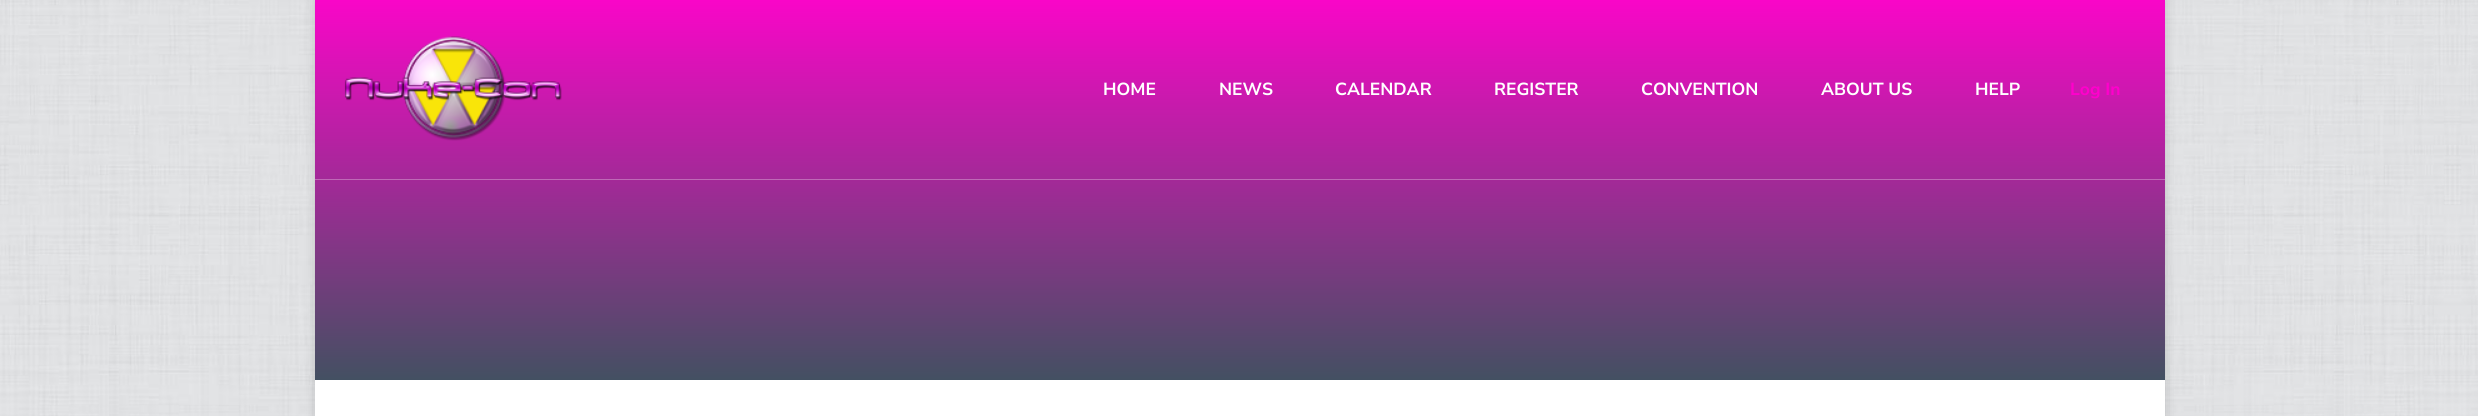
import math
import cairo

surface = cairo.ImageSurface(cairo.Format.RGB24, 2478, 416)
ctx = cairo.Context(surface)
options = cairo.FontOptions()
options.set_hint_metrics(cairo.HintMetrics.OFF)
options.set_hint_style(cairo.HintStyle.NONE)
ctx.set_font_options(options)
ctx.set_miter_limit(4)


def ink(r, g, b):
    ctx.set_source_rgb(r / 255, g / 255, b / 255)


def write(x, y, s, family, size, color, bold=False, italic=False):
    ctx.select_font_face(family, cairo.FontSlant.ITALIC if italic else cairo.FontSlant.NORMAL, cairo.FontWeight.BOLD if bold else cairo.FontWeight.NORMAL)
    ctx.set_font_size(size)
    ink(*color)
    ctx.move_to(x, y)
    ctx.show_text(s)


def block(x, y, w, h, *color):
    ink(*color)
    ctx.rectangle(x, y, w, h)
    ctx.fill()


def round_path(x, y, w, h, r):
    ctx.new_sub_path()
    for i, (u, v) in enumerate([(x + w - r, y + h - r), (x + r, y + h - r), (x + r, y + r), (x + w - r, y + r)]):
        ctx.arc(u, v, r, i * math.pi / 2, (i + 1) * math.pi / 2)
    ctx.close_path()


def blur_box(x, y, w, h, r, blur, alpha):
    ctx.push_group_with_content(cairo.Content.ALPHA)
    ctx.set_operator(cairo.Operator.SOURCE)
    for i in range(15, -16, -2):
        e = blur * i / 6
        if min(w, h) + 2 * e > 0:
            ctx.set_source_rgba(0, 0, 0, alpha * math.erfc((i - 1) / 8.5) / 2)
            round_path(x - e, y - e, w + 2 * e, h + 2 * e, max(0, min(r + e + blur * .6, min(w, h) / 2 + e)))
            ctx.fill()
    ctx.mask(ctx.pop_group())


def paste(path, x, y, w, h):
    ctx.save()
    ctx.set_source_surface(cairo.ImageSurface.create_from_png(path), x, y)
    ctx.rectangle(x, y, w, h)
    ctx.fill()
    ctx.restore()


s1 = dict(family="Nunito Sans", size=17.5, color=(255, 255, 255), bold=True)
s2 = dict(family="Nunito Sans", size=17.5, color=(255, 0, 204), bold=True)

ink(255, 255, 255)
ctx.paint()
paste("pic1.png", 0, 0, 2478, 416)
ink(0, 0, 0)
blur_box(315, 0, 1850, 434, 0, 6, 0.15)
block(315, 380, 1850, 36, 255, 255, 255)
gradient = cairo.LinearGradient(1240, 0, 1240, 380)
gradient.add_color_stop_rgba(0, 0.976, 0.024, 0.784, 1)
gradient.add_color_stop_rgba(1, 0.263, 0.314, 0.384, 1)
ctx.set_source(gradient)
ctx.rectangle(315, 0, 1850, 380)
ctx.fill()
block(315, 179, 1850, 1, 191, 105, 183)
paste("pic2.png", 344, 36, 218, 105)
write(1103, 95, "HOME", **s1)
write(1219, 95, "NEWS", **s1)
write(1335, 95, "CALENDAR", **s1)
write(1494, 95, "REGISTER", **s1)
write(1641, 95, "CONVENTION", **s1)
write(1821, 95, "ABOUT US", **s1)
write(1975, 95, "HELP", **s1)
write(2070, 95, "Log In", **s2)
surface.write_to_png("screenshot.png")
